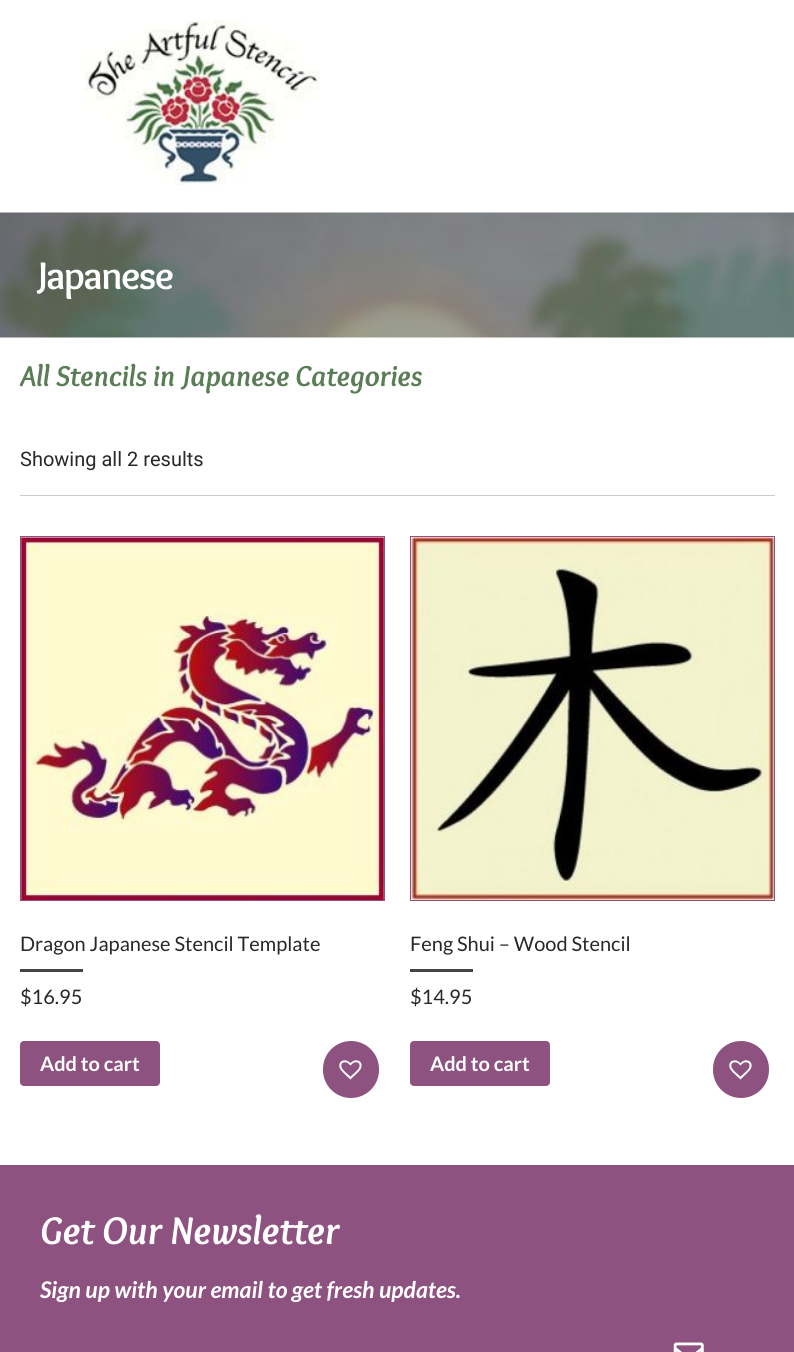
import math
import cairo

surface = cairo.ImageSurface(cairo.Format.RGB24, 794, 1352)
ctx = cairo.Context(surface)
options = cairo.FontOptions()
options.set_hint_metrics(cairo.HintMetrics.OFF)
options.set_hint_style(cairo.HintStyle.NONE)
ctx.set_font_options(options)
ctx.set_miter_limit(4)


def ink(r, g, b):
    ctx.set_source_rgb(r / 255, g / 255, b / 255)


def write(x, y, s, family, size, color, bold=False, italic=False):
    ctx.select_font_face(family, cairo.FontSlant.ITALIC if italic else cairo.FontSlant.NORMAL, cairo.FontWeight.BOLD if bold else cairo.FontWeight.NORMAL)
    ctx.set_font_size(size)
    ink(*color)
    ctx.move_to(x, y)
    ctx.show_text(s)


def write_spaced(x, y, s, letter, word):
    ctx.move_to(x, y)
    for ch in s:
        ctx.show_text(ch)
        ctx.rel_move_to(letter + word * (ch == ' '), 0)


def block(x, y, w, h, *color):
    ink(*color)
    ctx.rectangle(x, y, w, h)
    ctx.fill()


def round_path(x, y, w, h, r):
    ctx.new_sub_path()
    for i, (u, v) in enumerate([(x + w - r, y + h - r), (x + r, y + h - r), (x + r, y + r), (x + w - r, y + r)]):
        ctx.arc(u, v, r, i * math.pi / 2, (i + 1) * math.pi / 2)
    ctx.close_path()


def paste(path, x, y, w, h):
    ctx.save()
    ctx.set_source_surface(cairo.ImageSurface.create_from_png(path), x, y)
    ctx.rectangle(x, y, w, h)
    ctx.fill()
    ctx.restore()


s1 = dict(family="Overlock", size=30, color=(90, 125, 86), bold=True, italic=True)
s2 = dict(family="Roboto", size=20, color=(40, 40, 40))
s3 = dict(family="Lato", size=20, color=(40, 40, 40))
s4 = dict(family="Lato", size=20, color=(255, 255, 255), bold=True)
s5 = dict(family="Overlock", size=40, color=(255, 255, 255), bold=True, italic=True)
s6 = dict(family="Lato", size=23, color=(255, 255, 255), bold=True, italic=True)

ink(255, 255, 255)
ctx.paint()
paste("pic1.png", 85, 20, 235, 165)
paste("pic2.png", 0, 212, 794, 126)
ctx.select_font_face("Overlock", cairo.FontSlant.NORMAL, cairo.FontWeight.BOLD)
ctx.set_font_size(40)
ink(255, 255, 255)
write_spaced(38, 289, "Japanese", -1.5, 0)
write(20, 386, "All Stencils in Japanese Categories", **s1)
write(20, 466, "Showing all 2 results", **s2)
block(20, 495, 755, 1, 204, 204, 204)
ctx.rectangle(20.5, 536.5, 364, 364)
ink(141, 82, 128)
ctx.set_line_width(1)
ctx.stroke()
paste("pic3.png", 21, 537, 363, 363)
write(20, 951, "Dragon Japanese Stencil Template", **s3)
block(20, 969, 63, 3, 68, 68, 68)
write(20, 1004, "$16.95", **s3)
ink(141, 82, 128)
round_path(20, 1041, 140, 45, 4)
ctx.fill()
write(40, 1071, "Add to cart", **s4)
ink(141, 82, 128)
round_path(323, 1041, 56, 57, 28)
ctx.fill()
paste("pic4.png", 339, 1060, 23, 20)
ctx.rectangle(410.5, 536.5, 364, 364)
ctx.stroke()
paste("pic5.png", 411, 537, 363, 363)
write(410, 951, "Feng Shui – Wood Stencil", **s3)
block(410, 969, 63, 3, 68, 68, 68)
write(410, 1004, "$14.95", **s3)
ink(141, 82, 128)
round_path(410, 1041, 140, 45, 4)
ctx.fill()
write(430, 1071, "Add to cart", **s4)
ink(141, 82, 128)
round_path(713, 1041, 56, 57, 28)
ctx.fill()
paste("pic4.png", 729, 1060, 23, 20)
block(0, 1165, 794, 187, 141, 82, 128)
write(40, 1244, "Get Our Newsletter", **s5)
write(40, 1298, "Sign up with your email to get fresh updates.", **s6)
paste("pic6.png", 673, 1342, 31, 10)
surface.write_to_png("screenshot.png")
